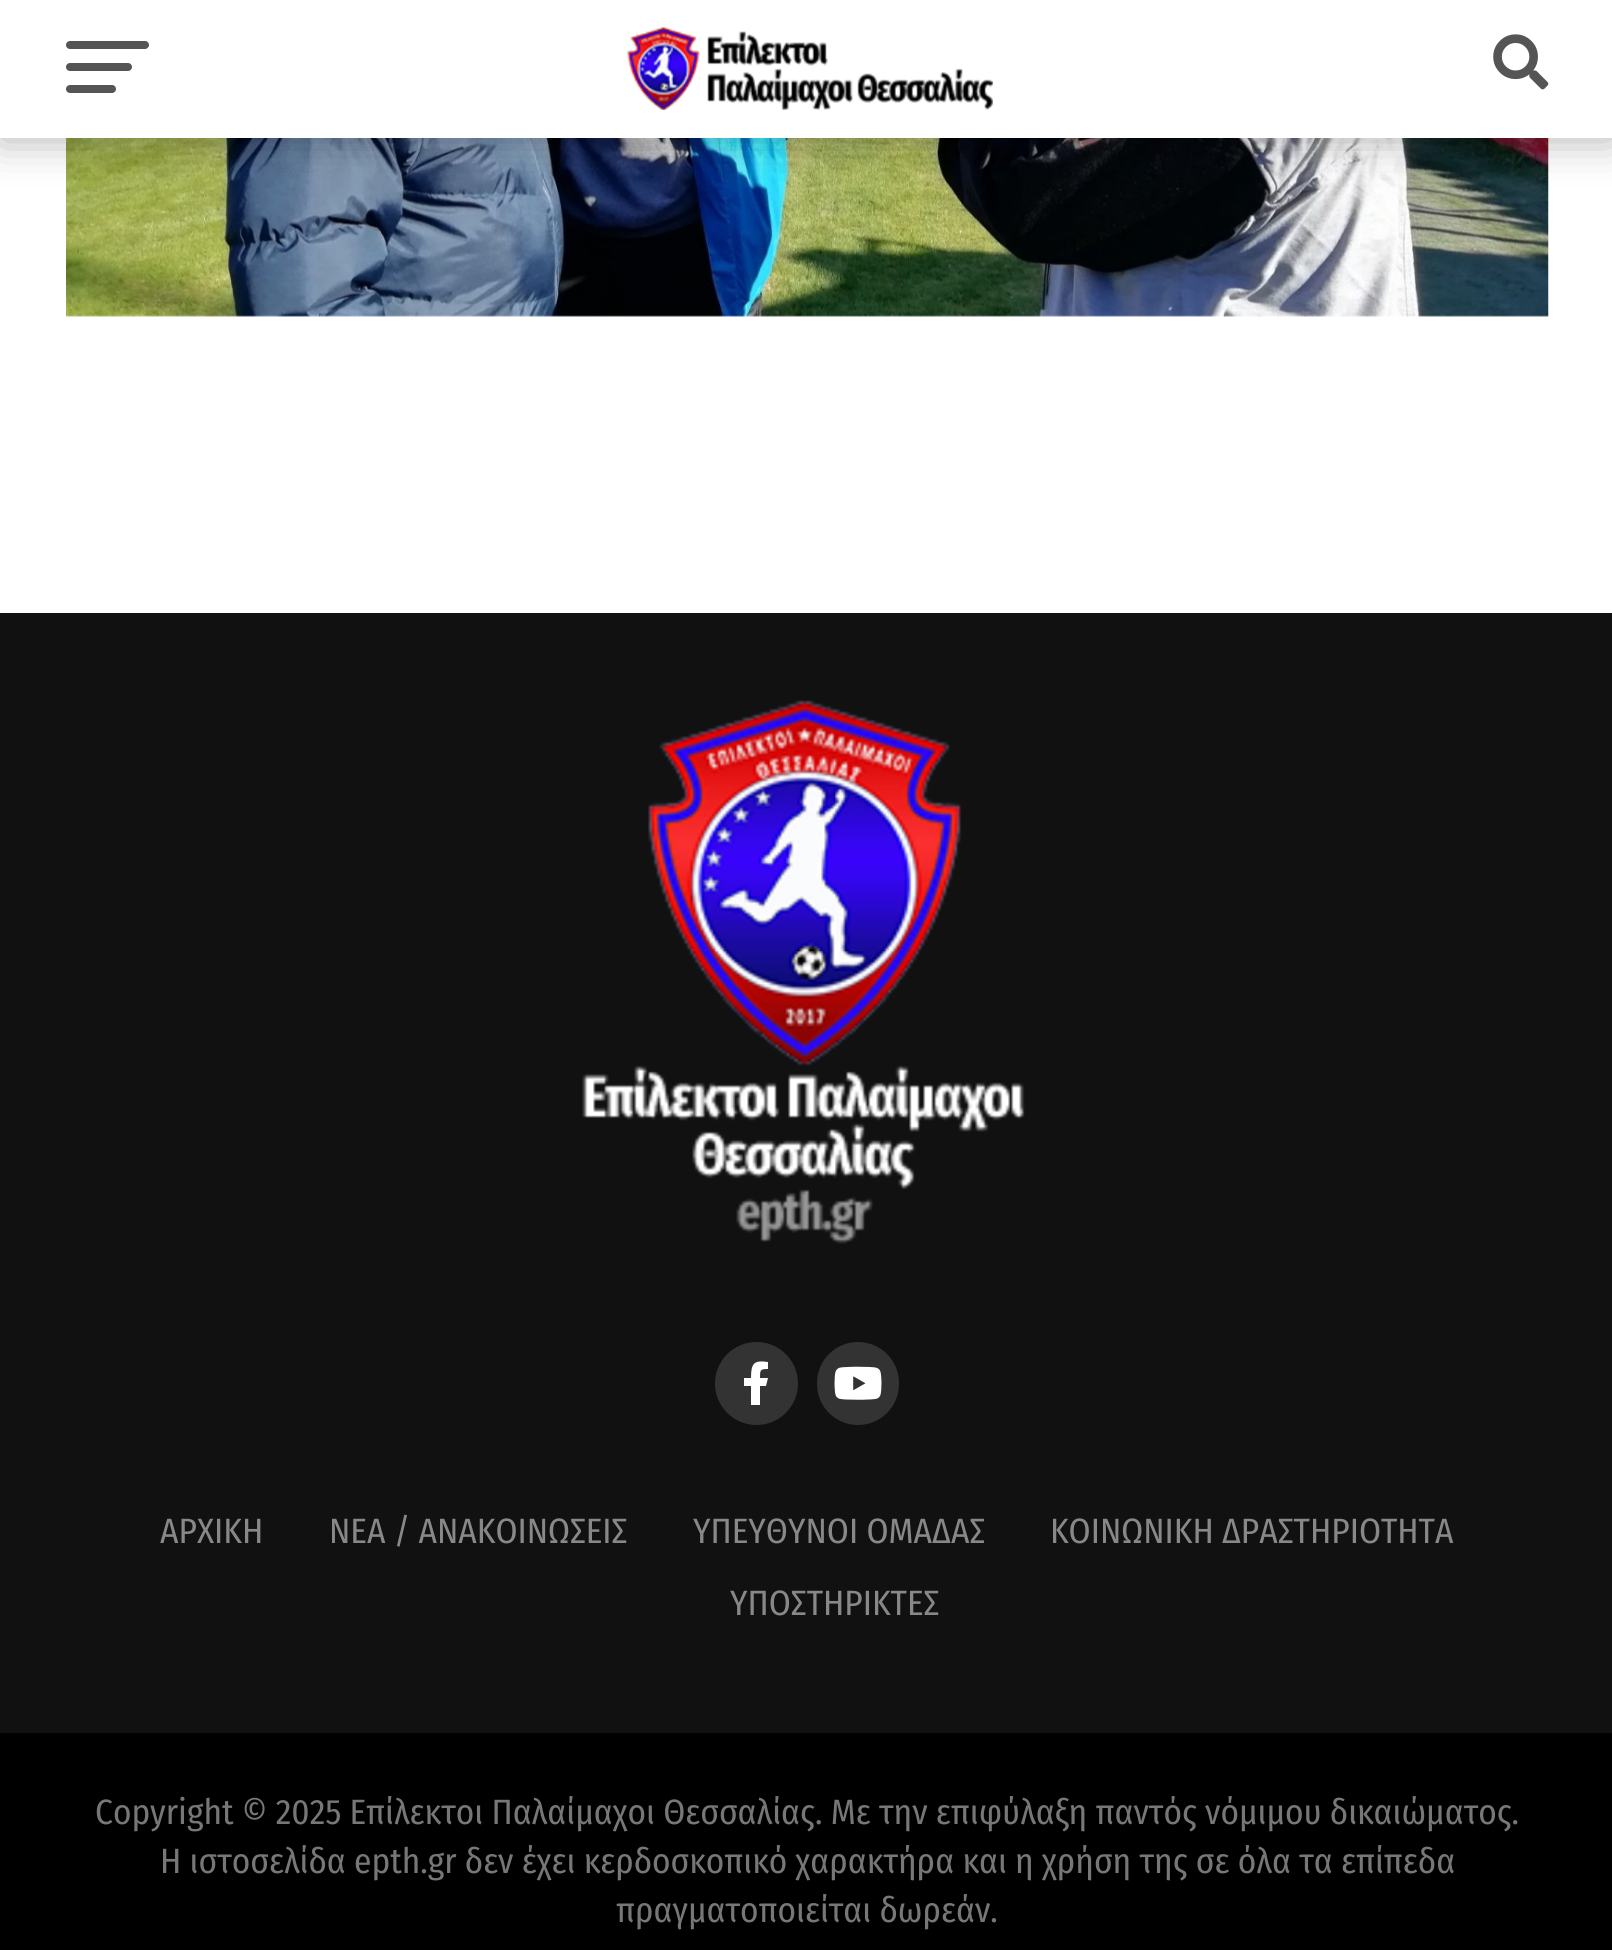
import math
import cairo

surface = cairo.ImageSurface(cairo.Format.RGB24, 1612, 1950)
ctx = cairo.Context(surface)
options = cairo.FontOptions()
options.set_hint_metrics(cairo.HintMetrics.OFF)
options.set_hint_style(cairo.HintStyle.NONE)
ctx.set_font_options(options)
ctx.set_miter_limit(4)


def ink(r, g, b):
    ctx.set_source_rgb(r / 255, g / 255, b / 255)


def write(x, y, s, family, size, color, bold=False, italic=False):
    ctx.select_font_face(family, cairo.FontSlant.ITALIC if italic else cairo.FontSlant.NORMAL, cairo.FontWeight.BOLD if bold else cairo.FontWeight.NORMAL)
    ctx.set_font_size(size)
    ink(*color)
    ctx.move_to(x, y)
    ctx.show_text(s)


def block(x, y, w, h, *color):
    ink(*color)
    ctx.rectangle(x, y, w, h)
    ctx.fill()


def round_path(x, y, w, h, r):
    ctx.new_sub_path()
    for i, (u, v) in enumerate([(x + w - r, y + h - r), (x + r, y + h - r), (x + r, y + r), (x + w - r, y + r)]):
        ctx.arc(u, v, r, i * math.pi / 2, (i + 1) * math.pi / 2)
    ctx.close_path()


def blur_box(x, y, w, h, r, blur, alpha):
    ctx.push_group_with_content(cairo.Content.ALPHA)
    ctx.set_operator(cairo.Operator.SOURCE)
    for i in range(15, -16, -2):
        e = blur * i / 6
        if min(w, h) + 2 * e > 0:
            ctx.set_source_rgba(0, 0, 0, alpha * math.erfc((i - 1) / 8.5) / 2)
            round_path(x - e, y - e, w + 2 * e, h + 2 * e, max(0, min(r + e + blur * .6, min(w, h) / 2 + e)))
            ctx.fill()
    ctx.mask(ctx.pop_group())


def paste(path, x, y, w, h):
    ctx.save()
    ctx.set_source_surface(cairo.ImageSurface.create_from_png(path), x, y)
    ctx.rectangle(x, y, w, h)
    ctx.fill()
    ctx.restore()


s1 = dict(family="Fira Sans Condensed", size=35.2, color=(136, 136, 136))
s2 = dict(family="Fira Sans Condensed", size=35.2, color=(119, 119, 119))

ink(255, 255, 255)
ctx.paint()
paste("pic3.png", 66, 138, 1483, 179)
ink(0, 0, 0)
blur_box(0, 3, 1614, 137, 0, 22, 0.3)
block(0, 0, 1612, 138, 255, 255, 255)
ink(85, 85, 85)
round_path(66, 41, 83, 8, 4)
ctx.fill()
round_path(66, 63, 66, 8, 4)
ctx.fill()
round_path(66, 85, 50, 8, 4)
ctx.fill()
paste("pic1.png", 626, 27, 367, 83)
paste("pic2.png", 1493, 34, 56, 56)
block(0, 613, 1612, 1120, 17, 17, 17)
paste("pic4.png", 582, 700, 443, 544)
ink(51, 51, 51)
ctx.arc(756.5, 1383.5, 41.5, 0, 2 * math.pi)
ctx.fill()
ink(255, 255, 255)
ctx.new_path()
ctx.move_to(766, 1386)
ctx.line_to(760, 1386)
ctx.line_to(760, 1405)
ctx.line_to(751, 1405)
ctx.line_to(751, 1386)
ctx.line_to(744, 1386)
ctx.line_to(744, 1378)
ctx.line_to(751, 1378)
ctx.curve_to(751, 1363, 754, 1360, 768, 1362)
ctx.line_to(768, 1369)
ctx.curve_to(760, 1369, 760, 1370, 760, 1378)
ctx.line_to(768, 1378)
ctx.close_path()
ctx.fill()
ink(51, 51, 51)
round_path(817, 1342, 82, 83, 41)
ctx.fill()
paste("pic5.png", 834, 1366, 48, 34)
write(160, 1543, "ΑΡΧΙΚΗ", **s1)
write(329, 1543, "ΝΕΑ / ΑΝΑΚΟΙΝΩΣΕΙΣ", **s1)
write(693, 1543, "ΥΠΕΥΘΥΝΟΙ ΟΜΑΔΑΣ", **s1)
write(1050, 1543, "ΚΟΙΝΩΝΙΚΗ ΔΡΑΣΤΗΡΙΟΤΗΤΑ", **s1)
write(730, 1615, "ΥΠΟΣΤΗΡΙΚΤΕΣ", **s1)
block(0, 1733, 1612, 217, 0, 0, 0)
write(95, 1824, "Copyright © 2025 Επίλεκτοι Παλαίμαχοι Θεσσαλίας. Με την επιφύλαξη παντός νόμιμου δικαιώματος.", **s2)
write(160, 1873, "Η ιστοσελίδα epth.gr δεν έχει κερδοσκοπικό χαρακτήρα και η χρήση της σε όλα τα επίπεδα", **s2)
write(616, 1922, "πραγματοποιείται δωρεάν.", **s2)
surface.write_to_png("screenshot.png")
